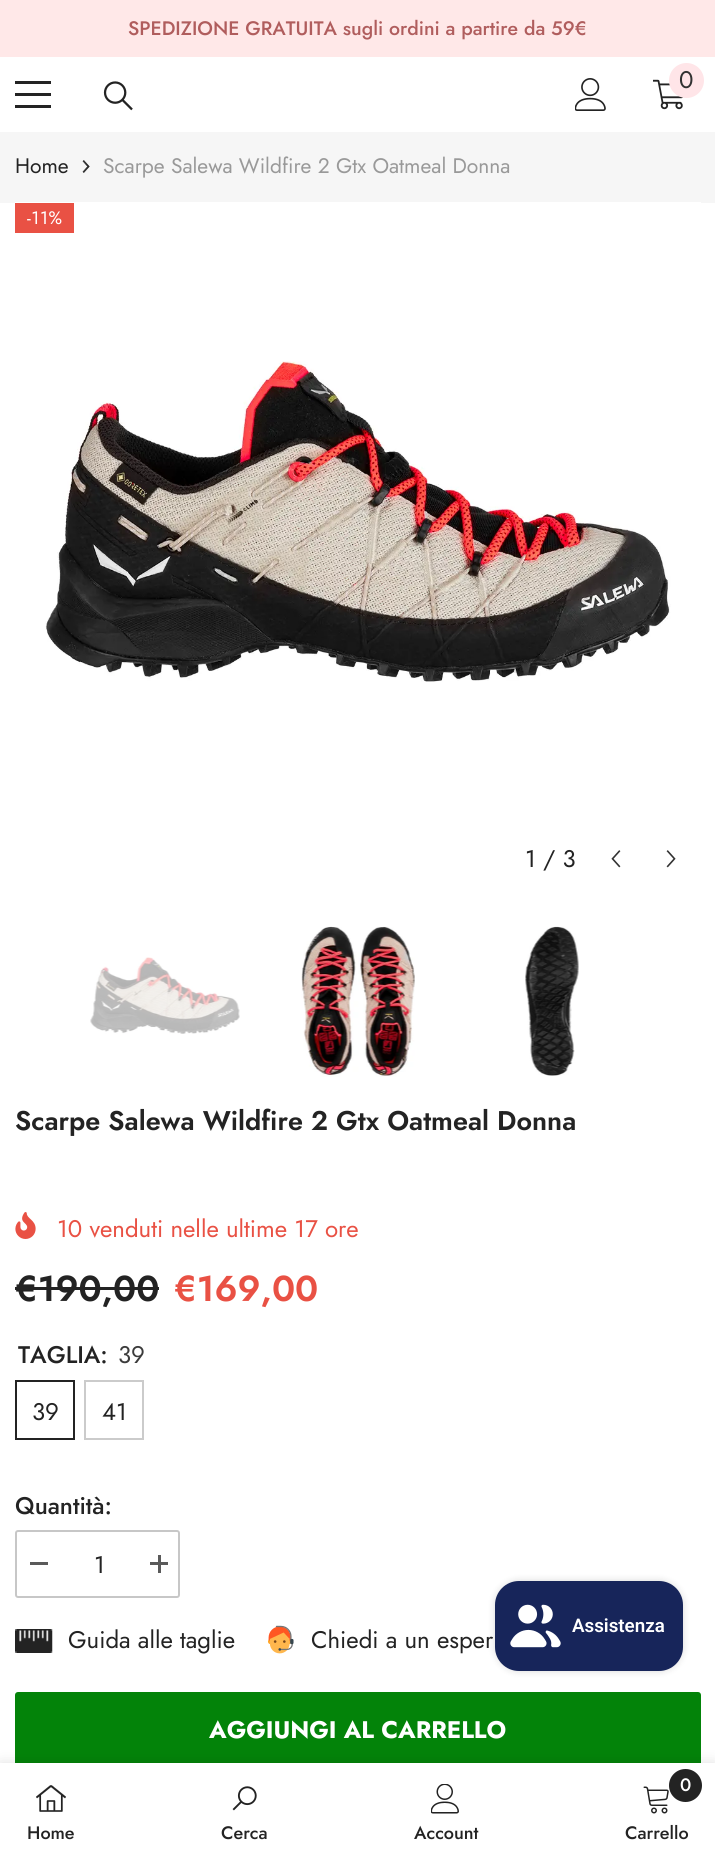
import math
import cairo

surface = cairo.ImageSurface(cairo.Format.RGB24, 715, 1858)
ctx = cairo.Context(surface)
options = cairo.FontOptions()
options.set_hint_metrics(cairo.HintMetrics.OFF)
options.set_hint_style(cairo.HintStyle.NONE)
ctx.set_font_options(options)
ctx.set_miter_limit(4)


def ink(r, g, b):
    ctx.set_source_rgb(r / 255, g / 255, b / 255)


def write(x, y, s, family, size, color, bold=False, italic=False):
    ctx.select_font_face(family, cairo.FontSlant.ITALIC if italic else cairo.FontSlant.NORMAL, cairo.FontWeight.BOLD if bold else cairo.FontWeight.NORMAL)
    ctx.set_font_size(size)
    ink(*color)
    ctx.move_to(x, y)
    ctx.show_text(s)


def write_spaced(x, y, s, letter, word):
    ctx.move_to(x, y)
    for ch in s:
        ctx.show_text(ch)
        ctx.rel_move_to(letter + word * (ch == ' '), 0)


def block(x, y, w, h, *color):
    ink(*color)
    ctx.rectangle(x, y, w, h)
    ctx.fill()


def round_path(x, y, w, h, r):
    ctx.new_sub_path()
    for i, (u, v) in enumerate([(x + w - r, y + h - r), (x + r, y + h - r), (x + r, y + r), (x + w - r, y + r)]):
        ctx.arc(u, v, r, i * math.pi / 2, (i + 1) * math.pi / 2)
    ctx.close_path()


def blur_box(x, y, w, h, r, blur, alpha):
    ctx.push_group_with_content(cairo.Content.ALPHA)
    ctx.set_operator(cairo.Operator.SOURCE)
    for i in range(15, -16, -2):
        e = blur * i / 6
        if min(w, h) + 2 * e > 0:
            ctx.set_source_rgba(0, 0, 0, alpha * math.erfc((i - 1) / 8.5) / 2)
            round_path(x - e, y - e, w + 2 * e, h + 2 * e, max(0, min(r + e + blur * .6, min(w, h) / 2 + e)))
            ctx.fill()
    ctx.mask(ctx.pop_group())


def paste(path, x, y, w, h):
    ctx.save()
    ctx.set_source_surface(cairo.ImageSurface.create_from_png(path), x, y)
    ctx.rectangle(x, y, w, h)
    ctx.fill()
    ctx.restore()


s1 = dict(family="Jost Medium", size=19.5, color=(176, 93, 93))
s2 = dict(family="Jost", size=24, color=(50, 50, 50))
s3 = dict(family="Jost", size=21, color=(35, 35, 35))
s4 = dict(family="Jost", size=21, color=(153, 153, 153))
s5 = dict(family="Jost", size=24, color=(35, 35, 35))
s6 = dict(family="Jost SemiBold", size=27, color=(35, 35, 35))
s7 = dict(family="Jost", size=24, color=(233, 81, 68))
s8 = dict(family="Jost SemiBold", size=36, color=(35, 35, 35))
s9 = dict(family="Jost SemiBold", size=36, color=(233, 81, 68))
s10 = dict(family="Jost Medium", size=24, color=(35, 35, 35))
s11 = dict(family="Jost", size=24, color=(60, 60, 60))
s12 = dict(family="Jost", size=24, color=(255, 255, 255), bold=True)
s13 = dict(family="Jost Medium", size=18, color=(35, 35, 35))
s14 = dict(family="Jost Medium", size=18, color=(255, 255, 255))
s15 = dict(family="Roboto SemiBold", size=18.75, color=(255, 255, 255))

ink(255, 255, 255)
ctx.paint()
block(0, 0, 715, 57, 255, 232, 232)
write(128, 35, "SPEDIZIONE GRATUITA sugli ordini a partire da 59€", **s1)
block(15, 93, 36, 3, 35, 35, 35)
block(15, 81, 36, 3, 35, 35, 35)
block(15, 105, 36, 3, 35, 35, 35)
paste("pic1.png", 103, 81, 30, 30)
paste("pic2.png", 575, 78, 31, 33)
paste("pic3.png", 653, 79, 30, 31)
ink(255, 229, 232)
ctx.arc(686.5, 80.5, 17.5, 0, 2 * math.pi)
ctx.fill()
write(679, 88, "0", **s2)
block(0, 132, 715, 71, 246, 246, 246)
write(15, 173, "Home", **s3)
paste("pic4.png", 82, 160, 8, 13)
write(103, 173, "Scarpe Salewa Wildfire 2 Gtx Oatmeal Donna", **s4)
paste("pic5.png", 15, 202, 686, 480)
block(15, 203, 59, 30, 233, 81, 68)
ctx.set_font_size(18)
ink(255, 255, 255)
write_spaced(27, 224, "-11%", 0.5, 0)
write(525, 867, "1 / 3", **s5)
paste("pic6.png", 611, 850, 10, 18)
paste("pic7.png", 666, 850, 10, 18)
paste("pic8.png", 90, 957, 150, 77)
paste("pic9.png", 301, 926, 114, 151)
paste("pic10.png", 525, 926, 54, 150)
write(15, 1130, "Scarpe Salewa Wildfire 2 Gtx Oatmeal Donna", **s6)
paste("pic11.png", 15, 1212, 21, 27)
write(57, 1237, "10 venduti nelle ultime 17 ore", **s7)
write(15, 1301, "€190,00", **s8)
block(15, 1287, 144, 3, 35, 35, 35)
write(174, 1301, "€169,00", **s9)
write(18, 1363, "TAGLIA:", **s10)
write(118, 1363, "39", **s11)
ctx.rectangle(16, 1381, 58, 58)
ink(35, 35, 35)
ctx.stroke()
write(32, 1420, "39", **s5)
ctx.rectangle(85, 1381, 58, 58)
ink(203, 203, 203)
ctx.stroke()
write(102, 1420, "41", **s5)
write(15, 1514, "Quantità:", **s10)
round_path(16, 1531, 163, 66, 2)
ink(199, 199, 199)
ctx.stroke()
block(30, 1562, 18, 3, 90, 90, 90)
write(94, 1573, "1", **s5)
block(150, 1562, 18, 3, 90, 90, 90)
block(158, 1555, 3, 18, 90, 90, 90)
paste("pic12.png", 15, 1629, 38, 24)
write(68, 1648, "Guida alle taglie", **s5)
paste("pic13.png", 268, 1625, 26, 29)
write(311, 1648, "Chiedi a un esper", **s5)
ink(3, 131, 9)
round_path(16, 1693, 684, 76, 2)
ctx.fill_preserve()
ctx.stroke()
write(209, 1738, "AGGIUNGI AL CARRELLO", **s12)
ink(0, 0, 0)
blur_box(0, 1763, 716, 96, 0, 7, 0.12)
block(0, 1763, 715, 95, 255, 255, 255)
paste("pic14.png", 36, 1785, 30, 27)
write(27, 1839, "Home", **s13)
paste("pic15.png", 232, 1786, 25, 25)
write(221, 1839, "Cerca", **s13)
paste("pic16.png", 431, 1784, 28, 30)
write(414, 1839, "Account", **s13)
paste("pic17.png", 643, 1786, 26, 28)
ctx.arc(685.5, 1785.5, 16.5, 0, 2 * math.pi)
ctx.fill()
write(680, 1791, "0", **s14)
write(625, 1839, "Carrello", **s13)
ink(0, 0, 0)
blur_box(495, 1581, 188, 90, 24, 4, 0.15)
ink(23, 37, 90)
round_path(495, 1581, 188, 90, 24)
ctx.fill()
paste("pic18.png", 510, 1604, 51, 44)
write(572, 1632, "Assistenza", **s15)
surface.write_to_png("screenshot.png")
